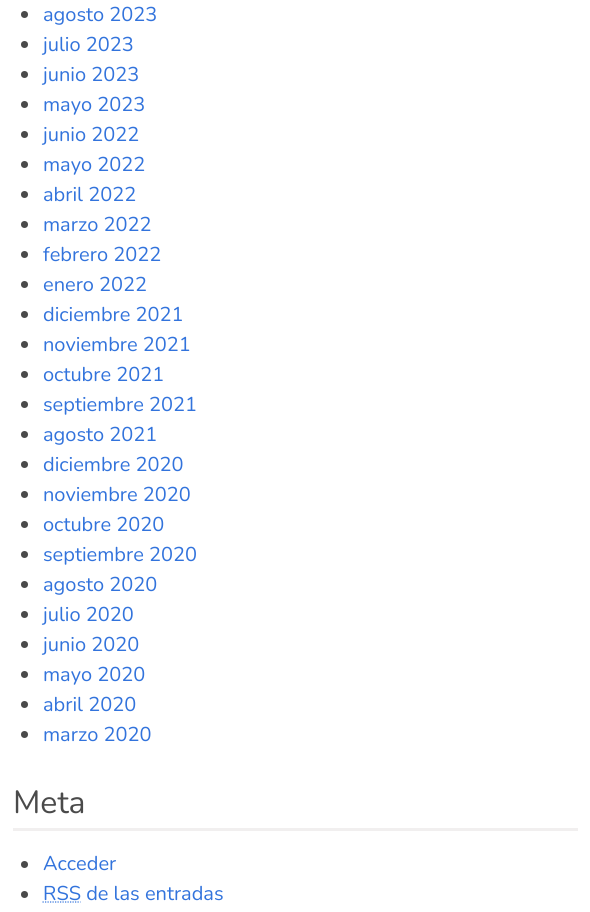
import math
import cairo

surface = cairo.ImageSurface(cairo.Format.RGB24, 590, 912)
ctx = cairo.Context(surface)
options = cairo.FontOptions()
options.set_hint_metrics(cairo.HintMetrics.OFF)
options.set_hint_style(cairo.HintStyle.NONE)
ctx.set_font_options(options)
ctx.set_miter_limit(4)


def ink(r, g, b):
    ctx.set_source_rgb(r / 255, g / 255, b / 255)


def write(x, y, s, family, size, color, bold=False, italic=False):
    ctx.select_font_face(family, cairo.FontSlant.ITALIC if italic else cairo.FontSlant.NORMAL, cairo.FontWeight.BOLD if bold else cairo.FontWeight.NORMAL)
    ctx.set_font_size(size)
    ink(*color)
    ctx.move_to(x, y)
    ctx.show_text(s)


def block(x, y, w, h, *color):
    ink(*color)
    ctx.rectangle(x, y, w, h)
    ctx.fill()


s1 = dict(family="Nunito", size=20, color=(50, 115, 220))
s2 = dict(family="Nunito", size=32, color=(74, 74, 74))

ink(255, 255, 255)
ctx.paint()
ink(74, 74, 74)
ctx.arc(24.5, 14.5, 3.5, 0, 2 * math.pi)
ctx.fill()
write(43, 21, "agosto 2023", **s1)
ink(74, 74, 74)
ctx.new_path()
ctx.arc(24.5, 44.5, 3.5, 0, 2 * math.pi)
ctx.fill()
write(43, 51, "julio 2023", **s1)
ink(74, 74, 74)
ctx.new_path()
ctx.arc(24.5, 74.5, 3.5, 0, 2 * math.pi)
ctx.fill()
write(43, 81, "junio 2023", **s1)
ink(74, 74, 74)
ctx.new_path()
ctx.arc(24.5, 104.5, 3.5, 0, 2 * math.pi)
ctx.fill()
write(43, 111, "mayo 2023", **s1)
ink(74, 74, 74)
ctx.new_path()
ctx.arc(24.5, 134.5, 3.5, 0, 2 * math.pi)
ctx.fill()
write(43, 141, "junio 2022", **s1)
ink(74, 74, 74)
ctx.new_path()
ctx.arc(24.5, 164.5, 3.5, 0, 2 * math.pi)
ctx.fill()
write(43, 171, "mayo 2022", **s1)
ink(74, 74, 74)
ctx.new_path()
ctx.arc(24.5, 194.5, 3.5, 0, 2 * math.pi)
ctx.fill()
write(43, 201, "abril 2022", **s1)
ink(74, 74, 74)
ctx.new_path()
ctx.arc(24.5, 224.5, 3.5, 0, 2 * math.pi)
ctx.fill()
write(43, 231, "marzo 2022", **s1)
ink(74, 74, 74)
ctx.new_path()
ctx.arc(24.5, 254.5, 3.5, 0, 2 * math.pi)
ctx.fill()
write(43, 261, "febrero 2022", **s1)
ink(74, 74, 74)
ctx.new_path()
ctx.arc(24.5, 284.5, 3.5, 0, 2 * math.pi)
ctx.fill()
write(43, 291, "enero 2022", **s1)
ink(74, 74, 74)
ctx.new_path()
ctx.arc(24.5, 314.5, 3.5, 0, 2 * math.pi)
ctx.fill()
write(43, 321, "diciembre 2021", **s1)
ink(74, 74, 74)
ctx.new_path()
ctx.arc(24.5, 344.5, 3.5, 0, 2 * math.pi)
ctx.fill()
write(43, 351, "noviembre 2021", **s1)
ink(74, 74, 74)
ctx.new_path()
ctx.arc(24.5, 374.5, 3.5, 0, 2 * math.pi)
ctx.fill()
write(43, 381, "octubre 2021", **s1)
ink(74, 74, 74)
ctx.new_path()
ctx.arc(24.5, 404.5, 3.5, 0, 2 * math.pi)
ctx.fill()
write(43, 411, "septiembre 2021", **s1)
ink(74, 74, 74)
ctx.new_path()
ctx.arc(24.5, 434.5, 3.5, 0, 2 * math.pi)
ctx.fill()
write(43, 441, "agosto 2021", **s1)
ink(74, 74, 74)
ctx.new_path()
ctx.arc(24.5, 464.5, 3.5, 0, 2 * math.pi)
ctx.fill()
write(43, 471, "diciembre 2020", **s1)
ink(74, 74, 74)
ctx.new_path()
ctx.arc(24.5, 494.5, 3.5, 0, 2 * math.pi)
ctx.fill()
write(43, 501, "noviembre 2020", **s1)
ink(74, 74, 74)
ctx.new_path()
ctx.arc(24.5, 524.5, 3.5, 0, 2 * math.pi)
ctx.fill()
write(43, 531, "octubre 2020", **s1)
ink(74, 74, 74)
ctx.new_path()
ctx.arc(24.5, 554.5, 3.5, 0, 2 * math.pi)
ctx.fill()
write(43, 561, "septiembre 2020", **s1)
ink(74, 74, 74)
ctx.new_path()
ctx.arc(24.5, 584.5, 3.5, 0, 2 * math.pi)
ctx.fill()
write(43, 591, "agosto 2020", **s1)
ink(74, 74, 74)
ctx.new_path()
ctx.arc(24.5, 614.5, 3.5, 0, 2 * math.pi)
ctx.fill()
write(43, 621, "julio 2020", **s1)
ink(74, 74, 74)
ctx.new_path()
ctx.arc(24.5, 644.5, 3.5, 0, 2 * math.pi)
ctx.fill()
write(43, 651, "junio 2020", **s1)
ink(74, 74, 74)
ctx.new_path()
ctx.arc(24.5, 674.5, 3.5, 0, 2 * math.pi)
ctx.fill()
write(43, 681, "mayo 2020", **s1)
ink(74, 74, 74)
ctx.new_path()
ctx.arc(24.5, 704.5, 3.5, 0, 2 * math.pi)
ctx.fill()
write(43, 711, "abril 2020", **s1)
ink(74, 74, 74)
ctx.new_path()
ctx.arc(24.5, 734.5, 3.5, 0, 2 * math.pi)
ctx.fill()
write(43, 741, "marzo 2020", **s1)
block(13, 828, 565, 3, 241, 239, 239)
write(13, 813, "Meta", **s2)
ctx.new_path()
ctx.arc(24.5, 864.5, 3.5, 0, 2 * math.pi)
ctx.fill()
write(43, 870, "Acceder", **s1)
ink(74, 74, 74)
ctx.new_path()
ctx.arc(24.5, 894.5, 3.5, 0, 2 * math.pi)
ctx.fill()
write(43, 900, "RSS de las entradas", **s1)
ctx.new_path()
ctx.move_to(42.5, 902)
ctx.line_to(80.5, 902)
ctx.set_line_width(1.2)
ctx.set_dash([1.25, 1.25])
ctx.stroke()
surface.write_to_png("screenshot.png")
